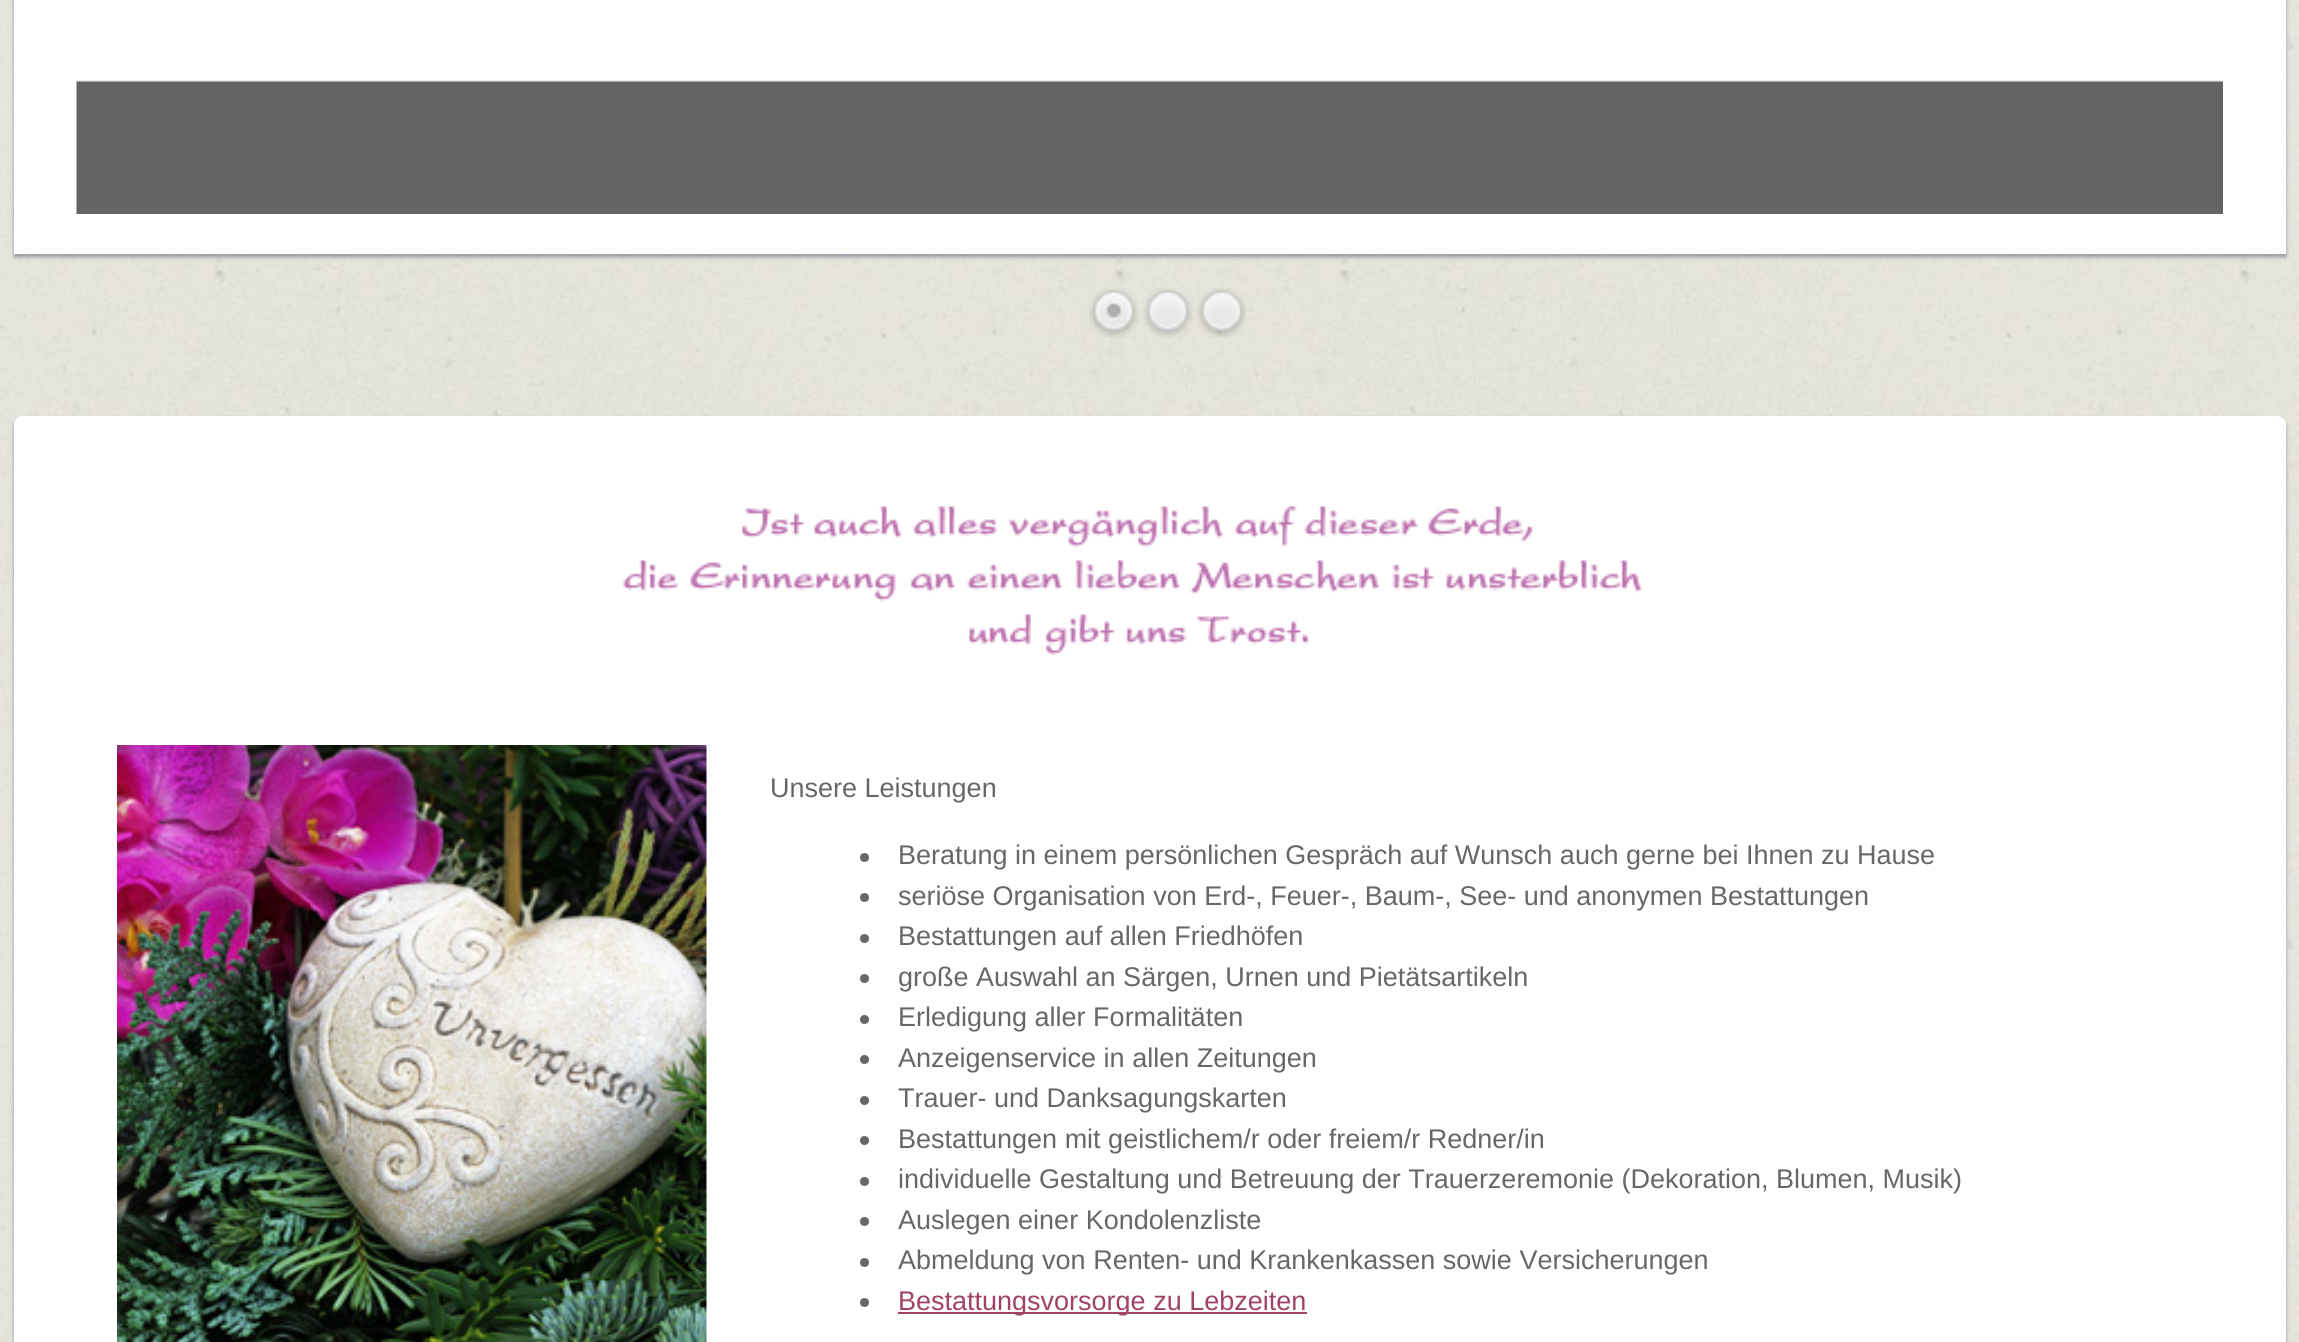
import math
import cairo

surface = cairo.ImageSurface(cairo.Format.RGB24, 2299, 1342)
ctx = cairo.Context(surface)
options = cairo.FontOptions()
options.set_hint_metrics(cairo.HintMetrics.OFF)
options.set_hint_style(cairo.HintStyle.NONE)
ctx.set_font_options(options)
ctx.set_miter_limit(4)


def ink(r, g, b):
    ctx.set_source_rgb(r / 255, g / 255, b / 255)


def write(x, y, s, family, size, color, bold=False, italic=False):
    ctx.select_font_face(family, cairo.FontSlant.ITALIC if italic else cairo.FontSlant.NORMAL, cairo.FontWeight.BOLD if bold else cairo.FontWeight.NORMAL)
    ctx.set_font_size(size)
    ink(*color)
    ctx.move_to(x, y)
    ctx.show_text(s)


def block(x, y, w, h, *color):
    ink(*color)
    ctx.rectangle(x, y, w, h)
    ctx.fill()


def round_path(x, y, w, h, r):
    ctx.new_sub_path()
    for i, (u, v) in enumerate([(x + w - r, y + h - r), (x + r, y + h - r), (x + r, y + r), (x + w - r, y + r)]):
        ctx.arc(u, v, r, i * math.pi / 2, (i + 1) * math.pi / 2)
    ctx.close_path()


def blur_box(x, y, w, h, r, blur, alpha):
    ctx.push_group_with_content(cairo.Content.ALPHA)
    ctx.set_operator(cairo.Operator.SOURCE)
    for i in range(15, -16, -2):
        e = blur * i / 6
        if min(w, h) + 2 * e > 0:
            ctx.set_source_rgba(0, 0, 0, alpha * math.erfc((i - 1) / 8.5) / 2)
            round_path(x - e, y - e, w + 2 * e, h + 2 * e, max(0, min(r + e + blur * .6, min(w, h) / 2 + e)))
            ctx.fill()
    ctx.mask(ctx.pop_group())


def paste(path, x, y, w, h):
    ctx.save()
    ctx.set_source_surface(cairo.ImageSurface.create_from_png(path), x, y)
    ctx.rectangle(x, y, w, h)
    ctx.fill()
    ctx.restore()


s1 = dict(family="Liberation Sans", size=27, color=(103, 103, 103))
s2 = dict(family="Liberation Sans", size=27, color=(161, 66, 105))

ink(255, 255, 255)
ctx.paint()
paste("pic1.png", 0, 0, 2299, 1342)
ink(147, 152, 162)
blur_box(14, -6, 2272, 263, 0, 2, 1)
block(14, 0, 2272, 254, 255, 255, 255)
paste("pic2.png", 76, 0, 2147, 214)
paste("pic3.png", 1089, 288, 50, 50)
paste("pic4.png", 1143, 288, 50, 50)
paste("pic5.png", 1197, 288, 50, 50)
ink(147, 152, 162)
blur_box(14, 419, 2272, 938, 9, 2, 1)
ink(255, 255, 255)
round_path(14, 416, 2272, 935, 9)
ctx.fill()
paste("pic6.png", 622, 506, 1021, 149)
paste("pic7.png", 117, 745, 590, 597)
write(770, 797, "Unsere Leistungen", **s1)
ctx.new_path()
ctx.arc(864.5, 857.5, 4.5, 0, 2 * math.pi)
ctx.fill()
write(898, 864, "Beratung in einem persönlichen Gespräch auf Wunsch auch gerne bei Ihnen zu Hause", **s1)
ctx.new_path()
ctx.arc(864.5, 897.5, 4.5, 0, 2 * math.pi)
ctx.fill()
write(898, 905, "seriöse Organisation von Erd-, Feuer-, Baum-, See- und anonymen Bestattungen", **s1)
ctx.new_path()
ctx.arc(864.5, 938.5, 4.5, 0, 2 * math.pi)
ctx.fill()
write(898, 945, "Bestattungen auf allen Friedhöfen", **s1)
ctx.new_path()
ctx.arc(864.5, 978.5, 4.5, 0, 2 * math.pi)
ctx.fill()
write(898, 986, "große Auswahl an Särgen, Urnen und Pietätsartikeln", **s1)
ctx.new_path()
ctx.arc(864.5, 1019.5, 4.5, 0, 2 * math.pi)
ctx.fill()
write(898, 1026, "Erledigung aller Formalitäten", **s1)
ctx.new_path()
ctx.arc(864.5, 1059.5, 4.5, 0, 2 * math.pi)
ctx.fill()
write(898, 1067, "Anzeigenservice in allen Zeitungen", **s1)
ctx.new_path()
ctx.arc(864.5, 1100.5, 4.5, 0, 2 * math.pi)
ctx.fill()
write(898, 1107, "Trauer- und Danksagungskarten", **s1)
ctx.new_path()
ctx.arc(864.5, 1140.5, 4.5, 0, 2 * math.pi)
ctx.fill()
write(898, 1148, "Bestattungen mit geistlichem/r oder freiem/r Redner/in", **s1)
ctx.new_path()
ctx.arc(864.5, 1181.5, 4.5, 0, 2 * math.pi)
ctx.fill()
write(898, 1188, "individuelle Gestaltung und Betreuung der Trauerzeremonie (Dekoration, Blumen, Musik)", **s1)
ctx.new_path()
ctx.arc(864.5, 1221.5, 4.5, 0, 2 * math.pi)
ctx.fill()
write(898, 1229, "Auslegen einer Kondolenzliste", **s1)
ctx.new_path()
ctx.arc(864.5, 1262.5, 4.5, 0, 2 * math.pi)
ctx.fill()
write(898, 1269, "Abmeldung von Renten- und Krankenkassen sowie Versicherungen", **s1)
ctx.new_path()
ctx.arc(864.5, 1302.5, 4.5, 0, 2 * math.pi)
ctx.fill()
block(898, 1312, 409, 2, 161, 66, 105)
write(898, 1310, "Bestattungsvorsorge zu Lebzeiten", **s2)
surface.write_to_png("screenshot.png")
